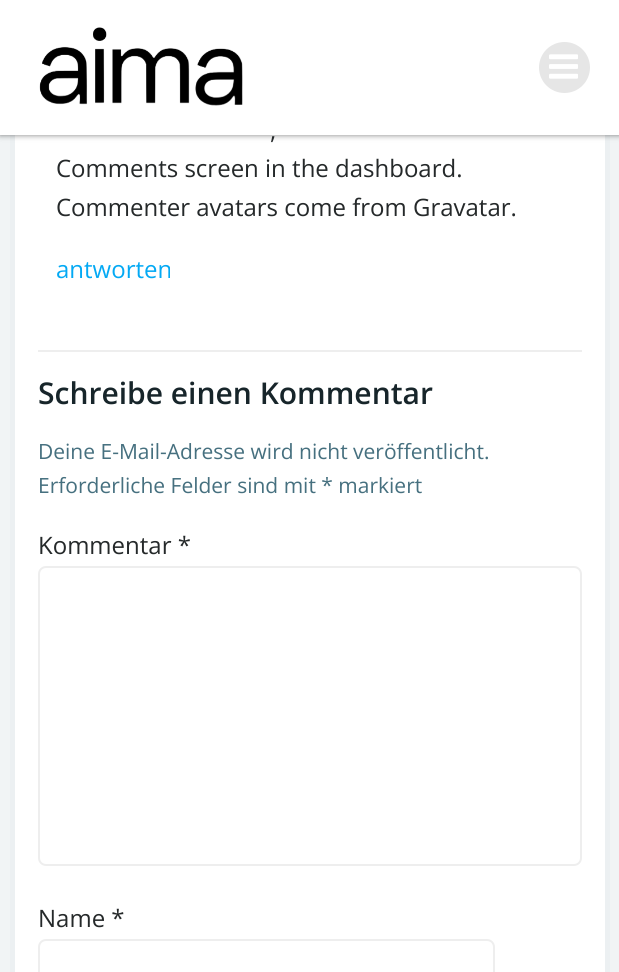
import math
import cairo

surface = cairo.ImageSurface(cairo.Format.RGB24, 619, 972)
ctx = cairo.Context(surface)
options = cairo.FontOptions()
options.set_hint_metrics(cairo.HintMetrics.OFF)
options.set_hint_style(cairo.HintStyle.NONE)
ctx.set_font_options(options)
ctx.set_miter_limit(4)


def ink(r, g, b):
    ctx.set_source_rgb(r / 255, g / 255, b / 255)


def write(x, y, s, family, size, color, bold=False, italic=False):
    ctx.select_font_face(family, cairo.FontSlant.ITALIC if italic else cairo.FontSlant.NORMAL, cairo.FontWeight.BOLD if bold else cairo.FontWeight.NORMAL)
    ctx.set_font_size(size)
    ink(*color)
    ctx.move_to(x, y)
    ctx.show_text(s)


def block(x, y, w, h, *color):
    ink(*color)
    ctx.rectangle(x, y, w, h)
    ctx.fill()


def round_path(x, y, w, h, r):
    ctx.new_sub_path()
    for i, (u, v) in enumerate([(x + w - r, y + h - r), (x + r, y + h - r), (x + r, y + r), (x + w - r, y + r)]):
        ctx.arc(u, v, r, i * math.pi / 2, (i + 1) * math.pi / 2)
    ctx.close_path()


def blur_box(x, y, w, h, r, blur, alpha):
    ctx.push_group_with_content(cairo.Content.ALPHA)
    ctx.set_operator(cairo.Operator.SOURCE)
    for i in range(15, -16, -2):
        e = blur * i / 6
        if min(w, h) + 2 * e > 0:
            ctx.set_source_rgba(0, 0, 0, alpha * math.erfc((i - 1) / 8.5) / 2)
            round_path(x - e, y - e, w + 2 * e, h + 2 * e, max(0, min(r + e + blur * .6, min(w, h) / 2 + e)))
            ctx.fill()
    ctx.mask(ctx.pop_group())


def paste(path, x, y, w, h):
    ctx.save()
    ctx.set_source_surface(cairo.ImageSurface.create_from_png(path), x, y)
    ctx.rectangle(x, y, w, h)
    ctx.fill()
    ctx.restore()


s1 = dict(family="Open Sans", size=24, color=(37, 41, 42))
s2 = dict(family="Open Sans", size=24, color=(3, 169, 244))
s3 = dict(family="Open Sans SemiBold", size=30, color=(23, 37, 42))
s4 = dict(family="Open Sans", size=21, color=(70, 112, 127))

ink(255, 255, 255)
ctx.paint()
ink(1, 51, 74)
blur_box(15, -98, 590, 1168, 8, 30, 0.15)
block(15, 135, 590, 837, 255, 255, 255)
ink(0, 0, 0)
blur_box(0, 0, 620, 135, 0, 3, 0.5)
block(0, 0, 619, 135, 255, 255, 255)
paste("pic1.png", 39, 27, 204, 79)
ink(230, 230, 230)
ctx.arc(564.5, 67.5, 25.5, 0, 2 * math.pi)
ctx.fill()
paste("pic2.png", 549, 54, 29, 25)
write(270, 139, ",", **s1)
write(56, 177, "Comments screen in the dashboard.", **s1)
write(56, 216, "Commenter avatars come from Gravatar.", **s1)
write(56, 278, "antworten", **s2)
block(38, 350, 544, 2, 238, 238, 238)
write(38, 404, "Schreibe einen Kommentar", **s3)
write(38, 459, "Deine E-Mail-Adresse wird nicht veröffentlicht.", **s4)
write(38, 493, "Erforderliche Felder sind mit * markiert", **s4)
write(38, 554, "Kommentar *", **s1)
round_path(39, 567, 542, 298, 7)
ink(238, 238, 238)
ctx.stroke()
write(38, 927, "Name *", **s1)
round_path(39, 940, 455, 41, 7)
ink(238, 238, 238)
ctx.stroke()
surface.write_to_png("screenshot.png")
